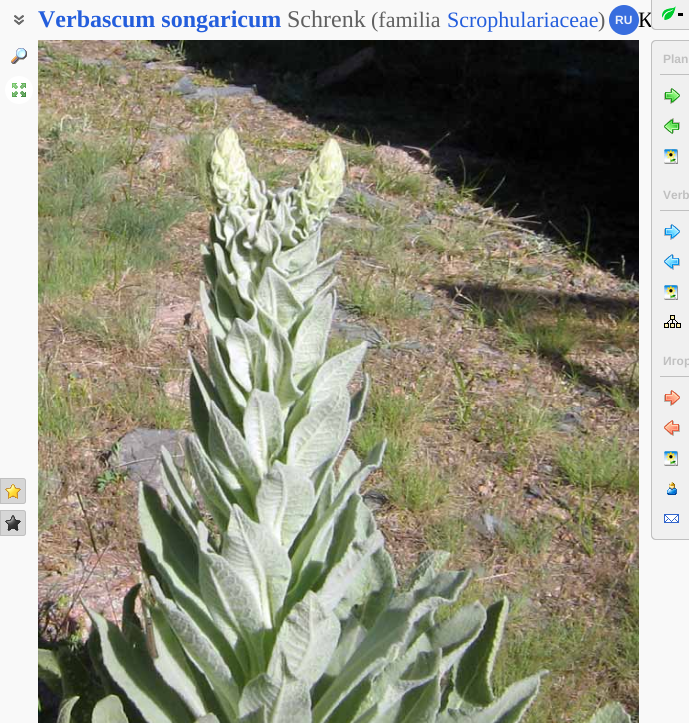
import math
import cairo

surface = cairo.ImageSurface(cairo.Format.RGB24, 689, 723)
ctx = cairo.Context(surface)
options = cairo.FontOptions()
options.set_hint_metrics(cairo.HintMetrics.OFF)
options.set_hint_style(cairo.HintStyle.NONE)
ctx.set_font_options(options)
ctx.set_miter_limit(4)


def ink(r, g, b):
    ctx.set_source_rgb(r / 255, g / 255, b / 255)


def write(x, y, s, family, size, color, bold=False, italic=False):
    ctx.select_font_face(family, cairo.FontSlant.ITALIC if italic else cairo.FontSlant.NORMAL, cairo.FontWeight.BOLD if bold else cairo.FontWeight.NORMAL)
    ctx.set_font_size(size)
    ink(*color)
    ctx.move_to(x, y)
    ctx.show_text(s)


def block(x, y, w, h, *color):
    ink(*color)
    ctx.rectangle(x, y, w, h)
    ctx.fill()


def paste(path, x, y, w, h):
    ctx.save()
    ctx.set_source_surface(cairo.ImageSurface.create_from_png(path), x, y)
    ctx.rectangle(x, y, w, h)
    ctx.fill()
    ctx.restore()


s1 = dict(family="Liberation Serif", size=24, color=(36, 94, 220), bold=True)
s2 = dict(family="Liberation Serif", size=24, color=(96, 96, 96))
s3 = dict(family="Liberation Serif", size=22, color=(96, 96, 96))
s4 = dict(family="Liberation Serif", size=22, color=(36, 94, 220))
s5 = dict(family="Liberation Serif", size=22, color=(0, 0, 0))
s6 = dict(family="Liberation Sans", size=12, color=(235, 240, 251), bold=True)
s7 = dict(family="Liberation Sans", size=12, color=(192, 192, 192), bold=True)

ink(249, 249, 249)
ctx.paint()
paste("pic1.png", 14, 15, 10, 10)
write(38, 27, "Verbascum songaricum", **s1)
write(287, 27, "Schrenk", **s2)
write(371, 27, "(familia", **s3)
write(447, 27, "Scrophulariaceae", **s4)
write(598, 27, ")", **s3)
write(638, 27, "К", **s5)
ctx.set_source_rgba(0.141, 0.369, 0.863, 0.9)
ctx.new_path()
ctx.arc(624, 20, 15, 0, 2 * math.pi)
ctx.fill()
write(615, 24, "RU", **s6)
paste("pic2.png", 11, 48, 16, 16)
ink(255, 255, 255)
ctx.arc(19, 90, 14, 0, 2 * math.pi)
ctx.fill()
paste("pic3.png", 12, 83, 14, 14)
ink(214, 214, 214)
ctx.new_path()
ctx.move_to(0, 478)
ctx.line_to(23, 478)
ctx.curve_to(24.5, 478, 26, 479.5, 26, 481)
ctx.line_to(26, 501)
ctx.curve_to(26, 502.5, 24.5, 504, 23, 504)
ctx.line_to(0, 504)
ctx.close_path()
ctx.fill()
paste("pic4.png", 5, 484, 16, 15)
ctx.new_path()
ctx.move_to(0.5, 478.5)
ctx.line_to(23, 478.5)
ctx.curve_to(24.5, 478.5, 25.5, 479.5, 25.5, 481)
ctx.line_to(25.5, 501)
ctx.curve_to(25.5, 502.5, 24.5, 503.5, 23, 503.5)
ctx.line_to(0.5, 503.5)
ctx.close_path()
ink(192, 192, 192)
ctx.set_line_width(1)
ctx.stroke()
ink(214, 214, 214)
ctx.new_path()
ctx.move_to(0, 510)
ctx.line_to(23, 510)
ctx.curve_to(24.5, 510, 26, 511.5, 26, 513)
ctx.line_to(26, 533)
ctx.curve_to(26, 534.5, 24.5, 536, 23, 536)
ctx.line_to(0, 536)
ctx.close_path()
ctx.fill()
paste("pic5.png", 5, 515, 16, 16)
ctx.new_path()
ctx.move_to(0.5, 510.5)
ctx.line_to(23, 510.5)
ctx.curve_to(24.5, 510.5, 25.5, 511.5, 25.5, 513)
ctx.line_to(25.5, 533)
ctx.curve_to(25.5, 534.5, 24.5, 535.5, 23, 535.5)
ctx.line_to(0.5, 535.5)
ctx.close_path()
ink(192, 192, 192)
ctx.stroke()
paste("pic6.png", 38, 40, 601, 683)
ink(240, 240, 240)
ctx.new_path()
ctx.move_to(651, 0)
ctx.line_to(689, 0)
ctx.line_to(689, 30)
ctx.line_to(656, 30)
ctx.curve_to(653, 30, 651, 28, 651, 25)
ctx.close_path()
ctx.fill()
paste("pic7.png", 662, 6, 14, 14)
ink(192, 192, 192)
ctx.set_fill_rule(cairo.FillRule.EVEN_ODD)
ctx.new_path()
ctx.move_to(651, 0)
ctx.line_to(689, 0)
ctx.line_to(689, 30)
ctx.line_to(656, 30)
ctx.curve_to(653, 30, 651, 28, 651, 25)
ctx.close_path()
ctx.move_to(652, 0)
ctx.line_to(689, 0)
ctx.line_to(689, 29)
ctx.line_to(656, 29)
ctx.curve_to(654, 29, 652, 27, 652, 25)
ctx.close_path()
ctx.fill()
block(678, 13, 5, 3, 0, 0, 0)
ink(240, 240, 240)
ctx.new_path()
ctx.move_to(656, 40)
ctx.line_to(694, 40)
ctx.line_to(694, 540)
ctx.line_to(656, 540)
ctx.curve_to(653, 540, 651, 538, 651, 535)
ctx.line_to(651, 45)
ctx.curve_to(651, 42, 653, 40, 656, 40)
ctx.close_path()
ctx.fill()
ink(192, 192, 192)
ctx.new_path()
ctx.move_to(656, 40)
ctx.line_to(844, 40)
ctx.line_to(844, 540)
ctx.line_to(656, 540)
ctx.curve_to(653, 540, 651, 538, 651, 535)
ctx.line_to(651, 45)
ctx.curve_to(651, 42, 653, 40, 656, 40)
ctx.close_path()
ctx.move_to(656, 41)
ctx.line_to(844, 41)
ctx.line_to(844, 539)
ctx.line_to(656, 539)
ctx.curve_to(654, 539, 652, 537, 652, 535)
ctx.line_to(652, 45)
ctx.curve_to(652, 43, 654, 41, 656, 41)
ctx.close_path()
ctx.fill()
block(660, 74, 29, 1, 192, 192, 192)
write(663, 63, "Plan", **s7)
paste("pic8.png", 664, 88, 16, 16)
paste("pic9.png", 664, 118, 16, 16)
paste("pic10.png", 664, 149, 14, 15)
block(660, 210, 29, 1, 192, 192, 192)
write(663, 199, "Verb", **s7)
paste("pic11.png", 664, 224, 16, 16)
paste("pic12.png", 664, 254, 16, 16)
paste("pic10.png", 664, 285, 14, 15)
paste("pic13.png", 664, 315, 17, 13)
block(660, 376, 29, 1, 192, 192, 192)
write(663, 365, "Игор", **s7)
paste("pic14.png", 664, 390, 16, 16)
paste("pic15.png", 664, 420, 16, 16)
paste("pic10.png", 664, 451, 14, 15)
paste("pic16.png", 667, 482, 10, 13)
paste("pic17.png", 664, 514, 15, 9)
surface.write_to_png("screenshot.png")
